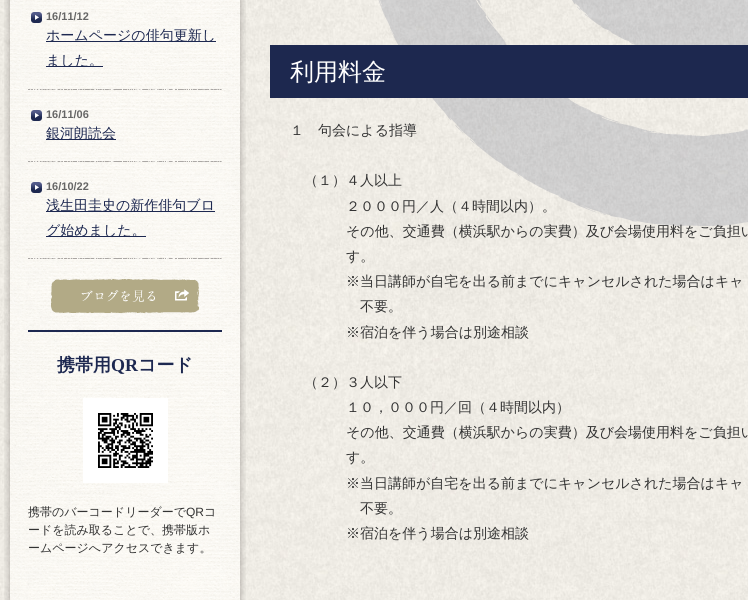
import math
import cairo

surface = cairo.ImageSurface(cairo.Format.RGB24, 748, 600)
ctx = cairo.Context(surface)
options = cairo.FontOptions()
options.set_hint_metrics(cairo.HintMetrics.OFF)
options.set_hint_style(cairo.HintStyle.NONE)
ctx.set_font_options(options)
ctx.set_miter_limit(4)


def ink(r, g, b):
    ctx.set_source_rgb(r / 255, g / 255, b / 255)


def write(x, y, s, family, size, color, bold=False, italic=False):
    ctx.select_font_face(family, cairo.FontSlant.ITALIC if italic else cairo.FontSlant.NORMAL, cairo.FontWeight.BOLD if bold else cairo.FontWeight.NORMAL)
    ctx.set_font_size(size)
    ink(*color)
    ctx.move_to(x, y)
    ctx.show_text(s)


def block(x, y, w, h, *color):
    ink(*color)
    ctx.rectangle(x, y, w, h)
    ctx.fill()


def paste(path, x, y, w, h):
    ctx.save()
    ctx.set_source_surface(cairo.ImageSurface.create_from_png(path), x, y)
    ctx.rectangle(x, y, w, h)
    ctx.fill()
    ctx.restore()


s1 = dict(family="Liberation Sans", size=11, color=(102, 102, 102), bold=True)
s2 = dict(family="WenQuanYi Zen Hei Medium", size=14, color=(29, 40, 80))
s3 = dict(family="WenQuanYi Zen Hei", size=18, color=(29, 40, 80), bold=True)
s4 = dict(family="Liberation Serif", size=18, color=(29, 40, 80), bold=True)
s5 = dict(family="WenQuanYi Zen Hei Medium", size=12, color=(51, 51, 51))
s6 = dict(family="Liberation Sans", size=12, color=(51, 51, 51))
s7 = dict(family="WenQuanYi Zen Hei Medium", size=24, color=(255, 255, 255))
s8 = dict(family="WenQuanYi Zen Hei Medium", size=14, color=(51, 51, 51))

ink(255, 255, 255)
ctx.paint()
paste("pic1.png", 0, 0, 748, 600)
paste("pic2.png", 378, 0, 370, 226)
paste("pic3.png", 4, 0, 242, 600)
write(46, 20, "16/11/12", **s1)
paste("pic4.png", 28, 89, 194, 1)
paste("pic5.png", 31, 12, 11, 11)
block(46, 41, 170, 1, 29, 40, 80)
write(46, 40, "ホームページの俳句更新し", **s2)
block(46, 66, 57, 1, 29, 40, 80)
write(46, 65, "ました。", **s2)
write(46, 118, "16/11/06", **s1)
paste("pic4.png", 28, 161, 194, 1)
paste("pic6.png", 31, 110, 11, 11)
block(46, 139, 70, 1, 29, 40, 80)
write(46, 138, "銀河朗読会", **s2)
write(46, 190, "16/10/22", **s1)
paste("pic4.png", 28, 258, 194, 1)
paste("pic7.png", 31, 182, 11, 11)
block(46, 211, 169, 1, 29, 40, 80)
write(46, 210, "浅生田圭史の新作俳句ブロ", **s2)
block(46, 236, 100, 1, 29, 40, 80)
write(46, 235, "グ始めました。", **s2)
paste("pic8.png", 51, 279, 148, 34)
block(28, 330, 194, 2, 29, 40, 80)
write(57, 371, "携帯用", **s3)
write(111, 371, "QR", **s4)
write(138, 371, "コード", **s3)
block(83, 398, 85, 85, 255, 255, 255)
paste("pic9.png", 98, 413, 55, 55)
write(28, 516, "携帯のバーコードリーダーで", **s5)
write(186, 516, "QR", **s6)
write(204, 516, "コ", **s5)
write(28, 534, "ードを読み取ることで、携帯版ホ", **s5)
write(28, 552, "ームページへアクセスできます。", **s5)
block(270, 45, 478, 53, 29, 40, 79)
write(290, 80, "利用料金", **s7)
write(290, 135, "１　句会による指導", **s8)
write(304, 185, "（１）４人以上", **s8)
write(346, 211, "２０００円／人（４時間以内）。", **s8)
write(346, 236, "その他、交通費（横浜駅からの実費）及び会場使用料をご負担い", **s8)
write(346, 261, "す。", **s8)
write(346, 286, "※当日講師が自宅を出る前までにキャンセルされた場合はキャ", **s8)
write(360, 311, "不要。", **s8)
write(346, 337, "※宿泊を伴う場合は別途相談", **s8)
write(304, 387, "（２）３人以下", **s8)
write(346, 412, "１０，０００円／回（４時間以内）", **s8)
write(346, 437, "その他、交通費（横浜駅からの実費）及び会場使用料をご負担い", **s8)
write(346, 462, "す。", **s8)
write(346, 488, "※当日講師が自宅を出る前までにキャンセルされた場合はキャ", **s8)
write(360, 513, "不要。", **s8)
write(346, 538, "※宿泊を伴う場合は別途相談", **s8)
surface.write_to_png("screenshot.png")
